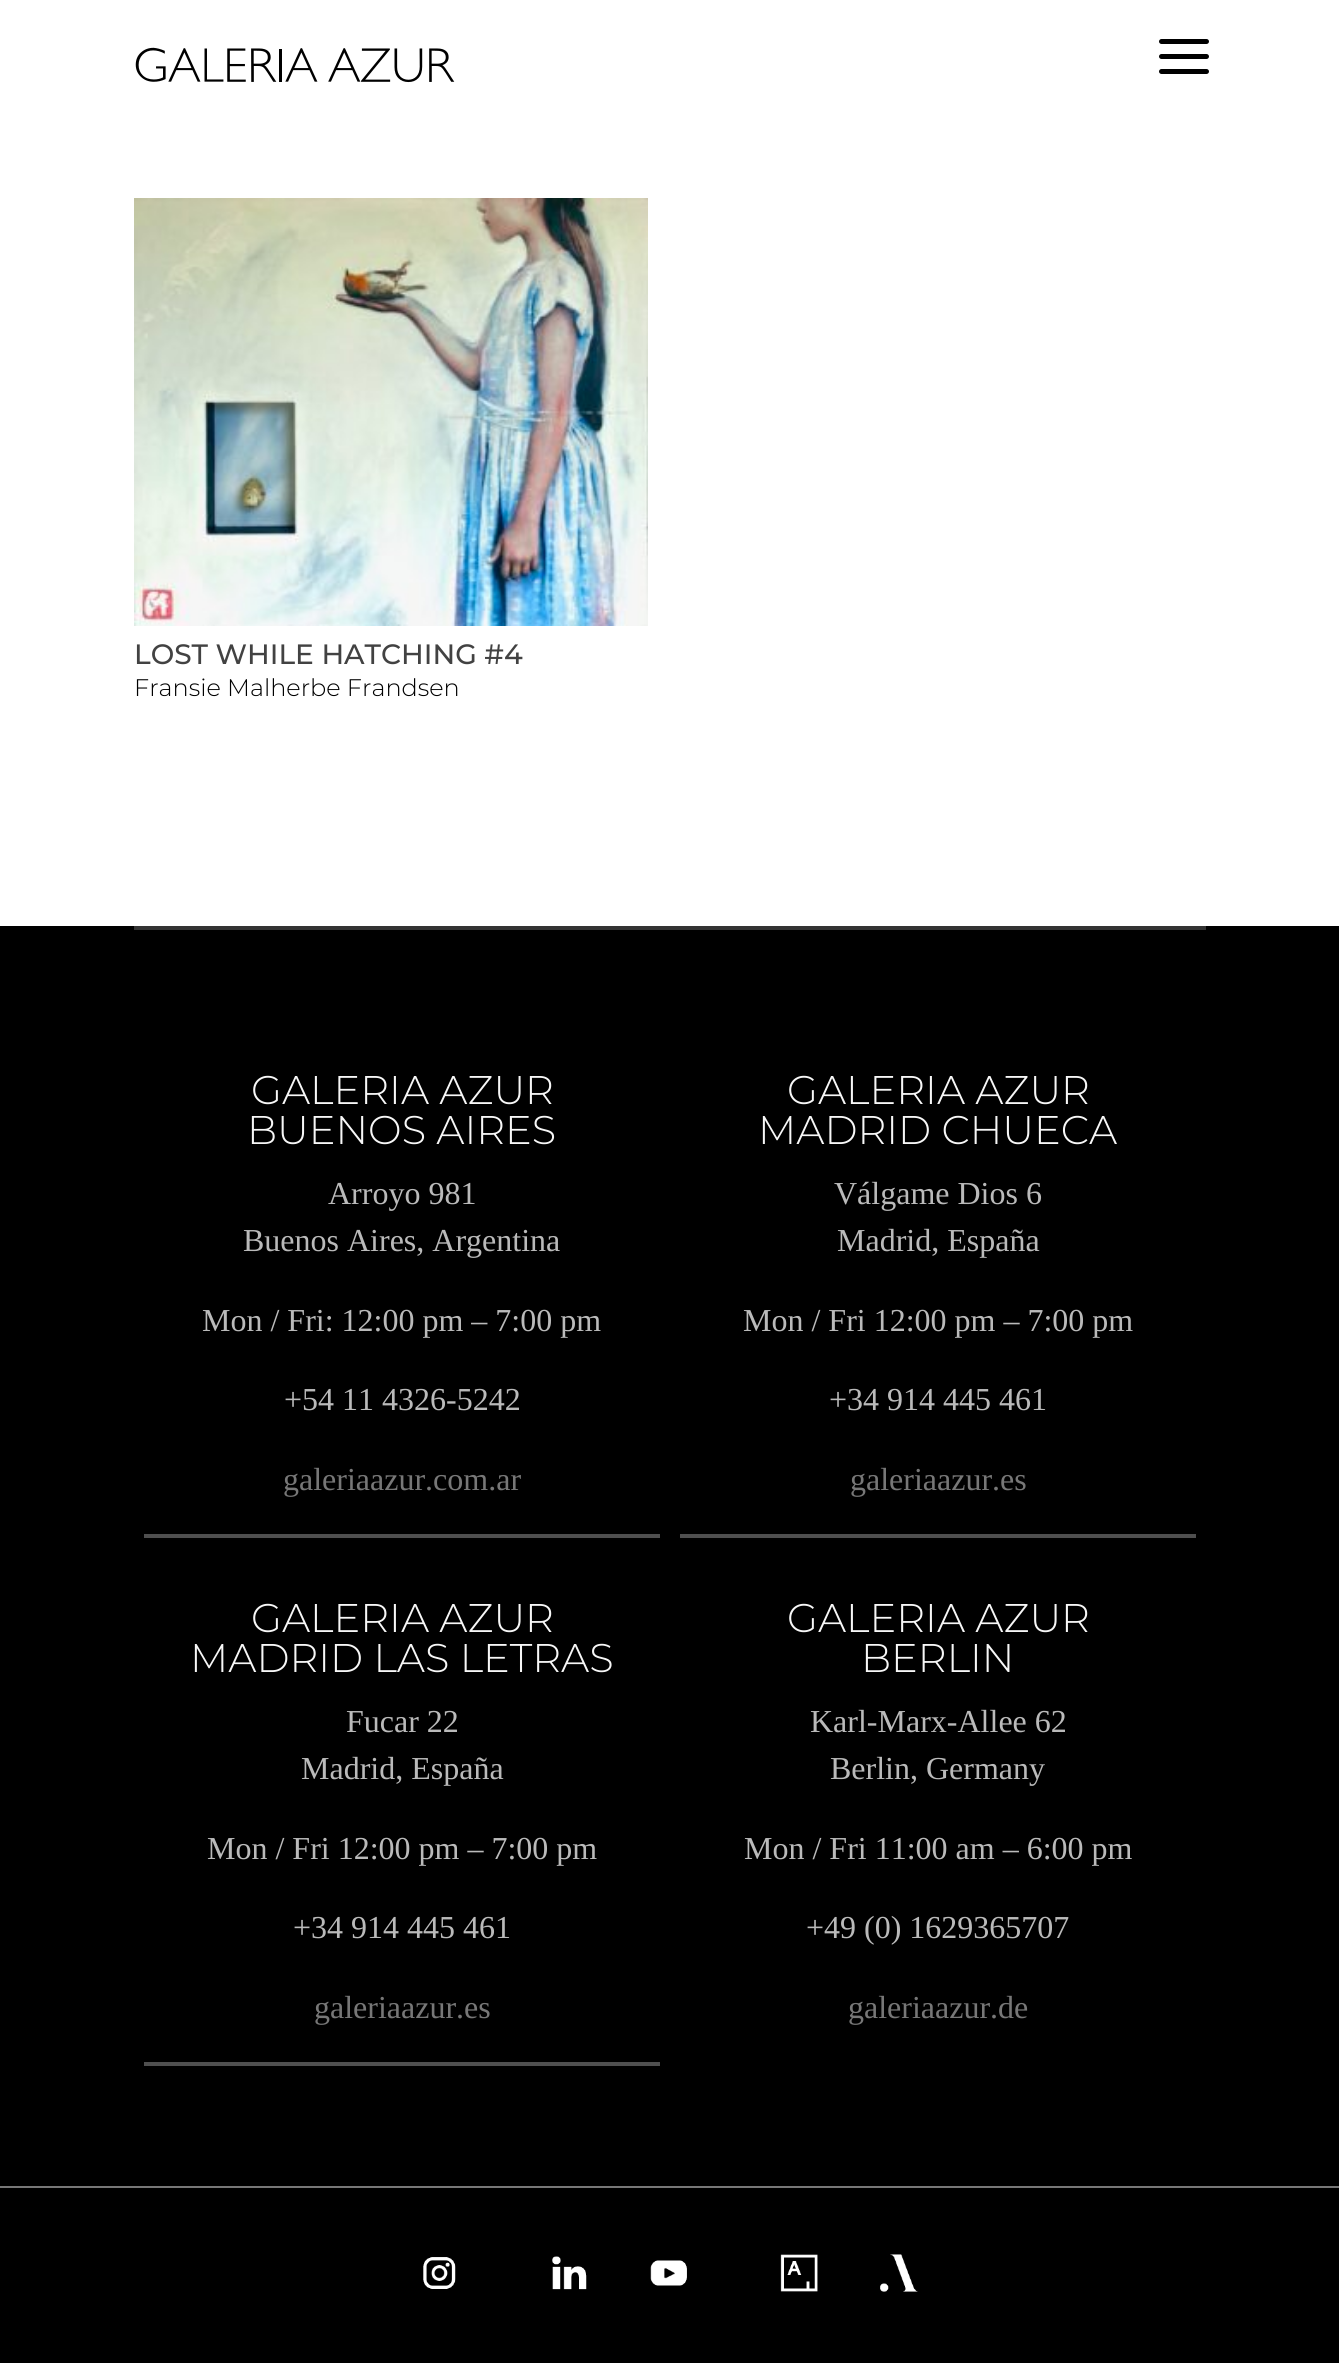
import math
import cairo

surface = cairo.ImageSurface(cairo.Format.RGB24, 1339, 2363)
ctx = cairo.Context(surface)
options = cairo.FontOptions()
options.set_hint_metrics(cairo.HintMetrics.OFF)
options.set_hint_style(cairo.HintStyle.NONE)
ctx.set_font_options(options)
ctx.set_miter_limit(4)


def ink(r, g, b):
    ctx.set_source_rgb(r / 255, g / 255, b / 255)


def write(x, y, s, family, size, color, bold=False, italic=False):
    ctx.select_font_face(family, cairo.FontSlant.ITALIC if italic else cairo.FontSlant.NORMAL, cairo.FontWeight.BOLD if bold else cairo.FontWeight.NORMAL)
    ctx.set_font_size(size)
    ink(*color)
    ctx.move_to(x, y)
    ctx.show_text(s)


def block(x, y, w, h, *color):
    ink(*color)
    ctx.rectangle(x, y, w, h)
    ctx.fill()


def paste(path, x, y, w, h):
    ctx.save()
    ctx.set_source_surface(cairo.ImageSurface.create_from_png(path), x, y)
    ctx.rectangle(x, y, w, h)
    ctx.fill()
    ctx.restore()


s1 = dict(family="Montserrat Medium", size=28, color=(66, 66, 66))
s2 = dict(family="Montserrat Light", size=24, color=(0, 0, 0))
s3 = dict(family="Montserrat Light", size=40, color=(247, 247, 247))
s4 = dict(family="Liberation Serif", size=32, color=(186, 186, 186))
s5 = dict(family="Liberation Serif", size=32, color=(119, 119, 119))

ink(255, 255, 255)
ctx.paint()
paste("pic1.png", 135, 47, 320, 36)
paste("pic2.png", 1159, 39, 50, 35)
paste("pic3.png", 134, 198, 514, 428)
write(134, 664, "LOST WHILE HATCHING #4", **s1)
write(134, 696, "Fransie Malherbe Frandsen", **s2)
block(0, 926, 1339, 1260, 0, 0, 0)
block(134, 926, 1072, 4, 51, 51, 51)
block(144, 1534, 516, 4, 79, 79, 79)
write(251, 1104, "GALERIA AZUR", **s3)
write(247, 1144, "BUENOS AIRES", **s3)
write(328, 1204, "Arroyo 981", **s4)
write(243, 1251, "Buenos Aires, Argentina", **s4)
write(202, 1331, "Mon / Fri: 12:00 pm – 7:00 pm", **s4)
write(284, 1410, "+54 11 4326-5242", **s4)
write(283, 1490, "galeriaazur.com.ar", **s5)
block(680, 1534, 516, 4, 79, 79, 79)
write(787, 1104, "GALERIA AZUR", **s3)
write(758, 1144, "MADRID CHUECA", **s3)
write(834, 1204, "Válgame Dios 6", **s4)
write(837, 1251, "Madrid, España", **s4)
write(743, 1331, "Mon / Fri 12:00 pm – 7:00 pm", **s4)
write(829, 1410, "+34 914 445 461", **s4)
write(850, 1490, "galeriaazur.es", **s5)
block(144, 2062, 516, 4, 79, 79, 79)
write(251, 1632, "GALERIA AZUR", **s3)
write(190, 1672, "MADRID LAS LETRAS", **s3)
write(346, 1732, "Fucar 22", **s4)
write(301, 1779, "Madrid, España", **s4)
write(207, 1859, "Mon / Fri 12:00 pm – 7:00 pm", **s4)
write(293, 1938, "+34 914 445 461", **s4)
write(314, 2018, "galeriaazur.es", **s5)
write(787, 1632, "GALERIA AZUR", **s3)
write(861, 1672, "BERLIN", **s3)
write(810, 1732, "Karl-Marx-Allee 62", **s4)
write(830, 1779, "Berlin, Germany", **s4)
write(744, 1859, "Mon / Fri 11:00 am – 6:00 pm", **s4)
write(806, 1938, "+49 (0) 1629365707", **s4)
write(848, 2018, "galeriaazur.de", **s5)
block(0, 2188, 1339, 175, 0, 0, 0)
block(0, 2186, 1339, 2, 119, 119, 119)
paste("pic4.png", 423, 2257, 33, 32)
paste("pic5.png", 552, 2256, 35, 34)
paste("pic6.png", 650, 2260, 37, 26)
paste("pic7.png", 780, 2254, 38, 38)
paste("pic8.png", 880, 2254, 38, 38)
surface.write_to_png("screenshot.png")
